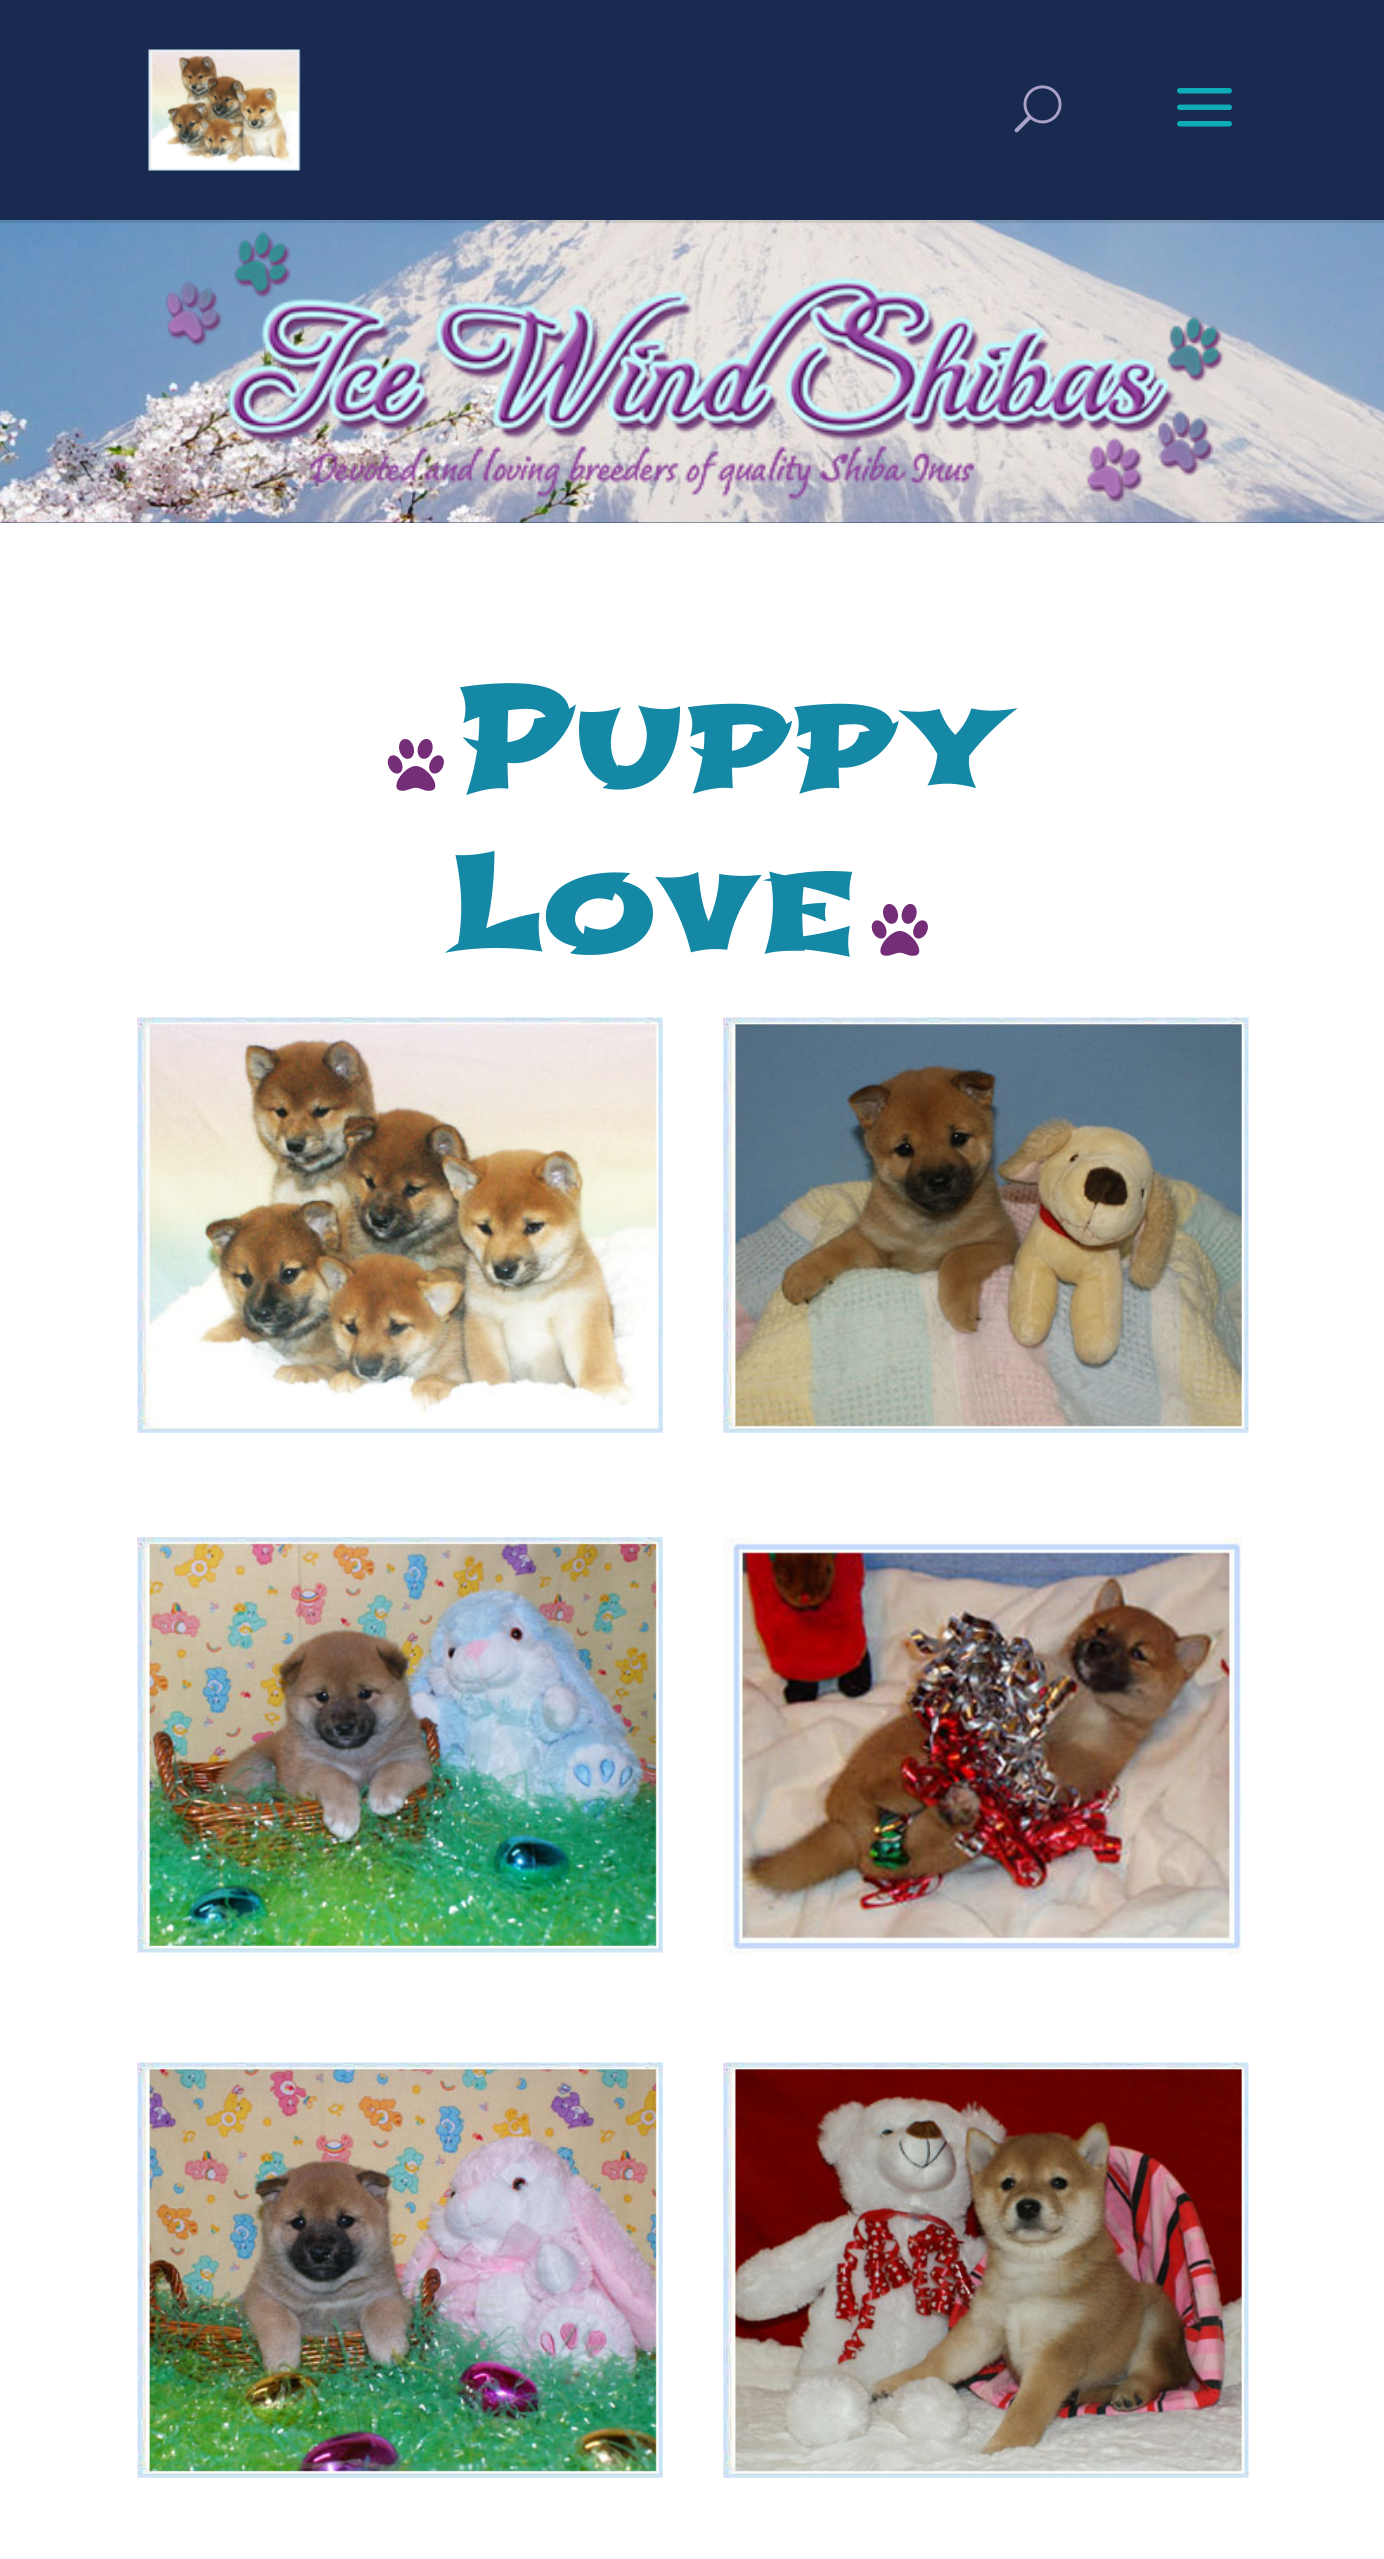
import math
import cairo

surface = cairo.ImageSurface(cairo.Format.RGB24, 1384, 2559)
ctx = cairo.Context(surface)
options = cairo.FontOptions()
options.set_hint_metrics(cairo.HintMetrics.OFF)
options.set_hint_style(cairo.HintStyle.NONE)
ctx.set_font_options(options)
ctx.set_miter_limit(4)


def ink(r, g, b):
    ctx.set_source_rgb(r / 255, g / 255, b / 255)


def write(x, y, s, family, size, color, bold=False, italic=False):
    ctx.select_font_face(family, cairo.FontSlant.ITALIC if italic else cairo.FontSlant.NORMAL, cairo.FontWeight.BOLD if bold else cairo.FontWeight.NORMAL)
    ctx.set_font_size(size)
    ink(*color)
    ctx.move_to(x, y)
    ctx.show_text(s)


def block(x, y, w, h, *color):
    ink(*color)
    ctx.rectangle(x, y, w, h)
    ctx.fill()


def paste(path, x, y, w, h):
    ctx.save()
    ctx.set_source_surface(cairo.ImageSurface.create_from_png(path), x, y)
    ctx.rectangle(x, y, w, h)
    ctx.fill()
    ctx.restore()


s1 = dict(family="Shojumaru", size=137.5, color=(21, 136, 165))

ink(255, 255, 255)
ctx.paint()
block(0, 522, 1384, 1, 45, 63, 104)
paste("pic4.png", 0, 220, 1384, 303)
ctx.set_source_rgba(0, 0, 0, 0.1)
ctx.rectangle(0, 220, 1384, 3)
ctx.fill()
block(0, 0, 1384, 220, 25, 42, 81)
paste("pic1.png", 148, 49, 153, 122)
paste("pic2.png", 1014, 85, 48, 48)
paste("pic3.png", 1177, 88, 55, 39)
paste("pic5.png", 165, 231, 1059, 273)
paste("pic6.png", 387, 739, 57, 52)
write(458, 786, "Puppy", **s1)
write(445, 951, "Love", **s1)
paste("pic6.png", 871, 904, 57, 52)
paste("pic7.png", 137, 1017, 526, 416)
paste("pic8.png", 723, 1017, 526, 416)
paste("pic9.png", 137, 1537, 526, 416)
paste("pic10.png", 723, 1537, 519, 419)
paste("pic11.png", 137, 2062, 526, 416)
paste("pic12.png", 723, 2062, 526, 416)
surface.write_to_png("screenshot.png")
